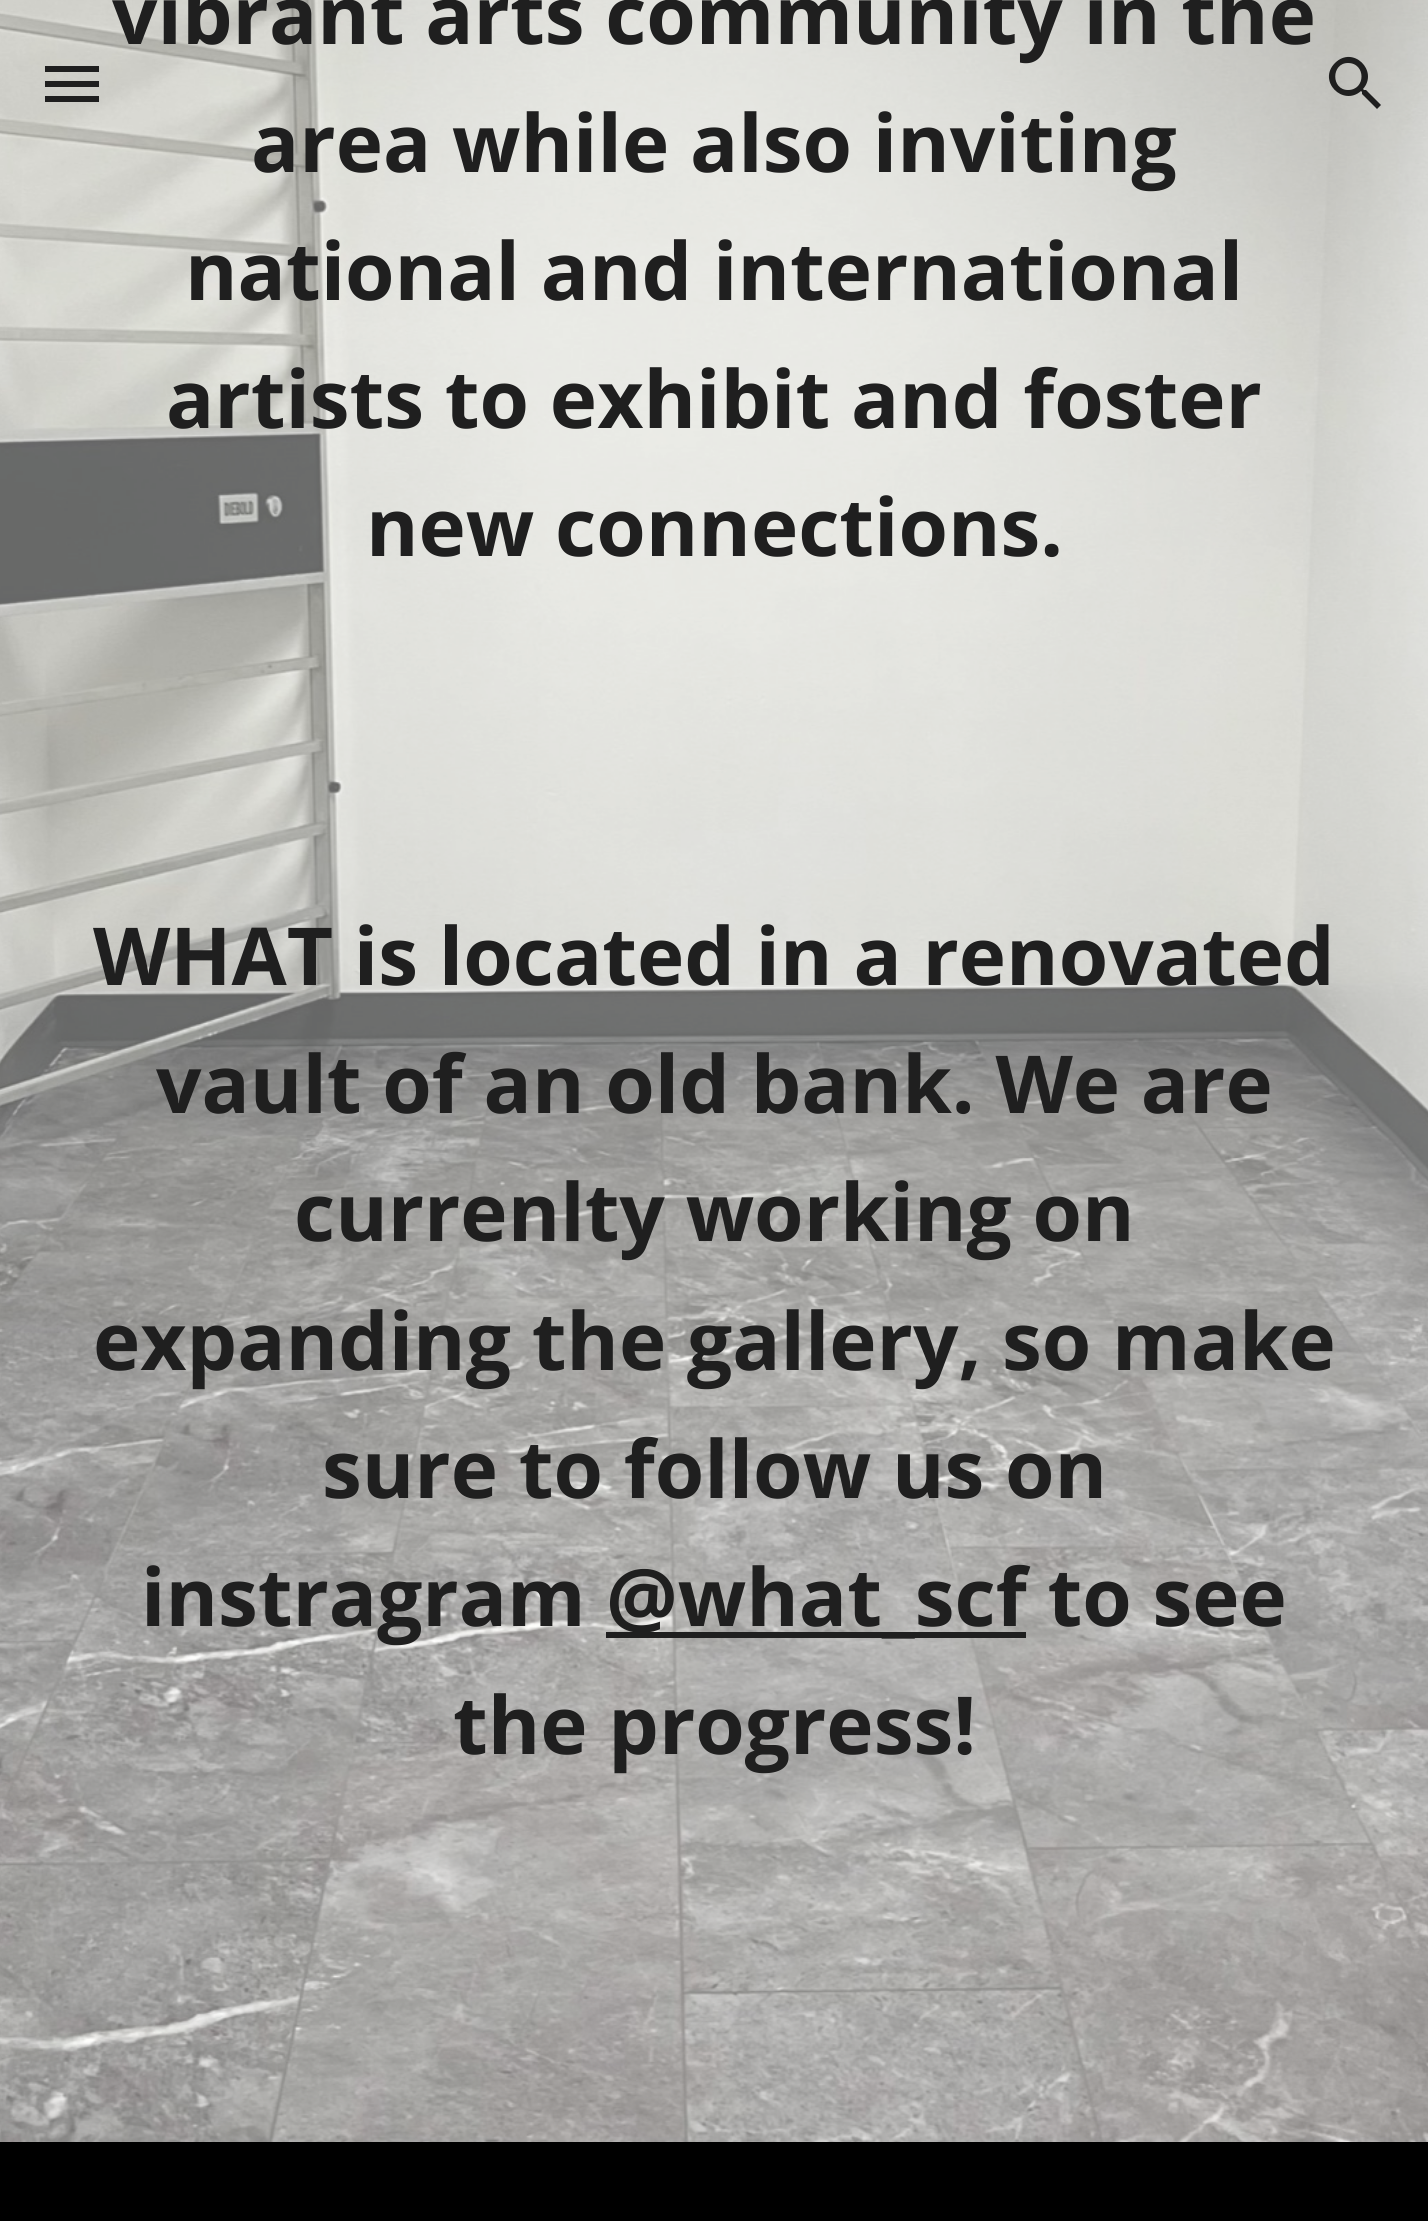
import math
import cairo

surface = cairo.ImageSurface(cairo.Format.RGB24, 1428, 2221)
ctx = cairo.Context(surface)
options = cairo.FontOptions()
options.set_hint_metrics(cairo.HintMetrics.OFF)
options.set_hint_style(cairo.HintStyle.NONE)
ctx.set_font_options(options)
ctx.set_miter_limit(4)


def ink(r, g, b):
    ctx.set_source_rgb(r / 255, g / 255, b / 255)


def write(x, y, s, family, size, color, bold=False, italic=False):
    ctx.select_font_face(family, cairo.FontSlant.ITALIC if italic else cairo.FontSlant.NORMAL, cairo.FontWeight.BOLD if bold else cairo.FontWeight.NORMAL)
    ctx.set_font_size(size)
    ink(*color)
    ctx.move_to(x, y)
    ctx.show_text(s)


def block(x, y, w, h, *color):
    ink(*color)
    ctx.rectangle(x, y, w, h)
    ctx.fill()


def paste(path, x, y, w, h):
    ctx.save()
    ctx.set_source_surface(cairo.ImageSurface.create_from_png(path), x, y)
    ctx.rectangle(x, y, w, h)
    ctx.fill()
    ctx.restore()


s1 = dict(family="Open Sans", size=80, color=(31, 31, 31), bold=True)

ink(255, 255, 255)
ctx.paint()
paste("pic1.png", 0, 0, 1428, 2142)
write(112, 44, "vibrant arts community in the", **s1)
write(251, 172, "area while also inviting", **s1)
write(185, 300, "national and international", **s1)
write(166, 428, "artists to exhibit and foster", **s1)
write(366, 556, "new connections.", **s1)
write(93, 985, "WHAT is located in a renovated", **s1)
write(156, 1113, "vault of an old bank. We are", **s1)
write(294, 1241, "currenlty working on", **s1)
write(93, 1370, "expanding the gallery, so make", **s1)
write(322, 1498, "sure to follow us on", **s1)
write(141, 1626, "instragram", **s1)
block(606, 1632, 420, 6, 31, 31, 31)
write(606, 1626, "@what_scf to see", **s1)
write(453, 1754, "the progress!", **s1)
block(0, 2142, 1428, 79, 0, 0, 0)
block(45, 66, 54, 6, 31, 31, 31)
block(45, 81, 54, 6, 31, 31, 31)
block(45, 96, 54, 6, 31, 31, 31)
ctx.new_path()
ctx.move_to(1366, 90)
ctx.line_to(1364, 90)
ctx.line_to(1363, 89)
ctx.curve_to(1379, 71, 1353, 45, 1335, 63)
ctx.curve_to(1317, 81, 1343, 107, 1361, 91)
ctx.line_to(1362, 92)
ctx.line_to(1362, 94)
ctx.line_to(1377, 109)
ctx.line_to(1381, 105)
ctx.close_path()
ctx.move_to(1348, 90)
ctx.curve_to(1331, 90, 1331, 63, 1348, 63)
ctx.curve_to(1366, 63, 1366, 90, 1348, 90)
ctx.close_path()
ctx.fill()
surface.write_to_png("screenshot.png")
